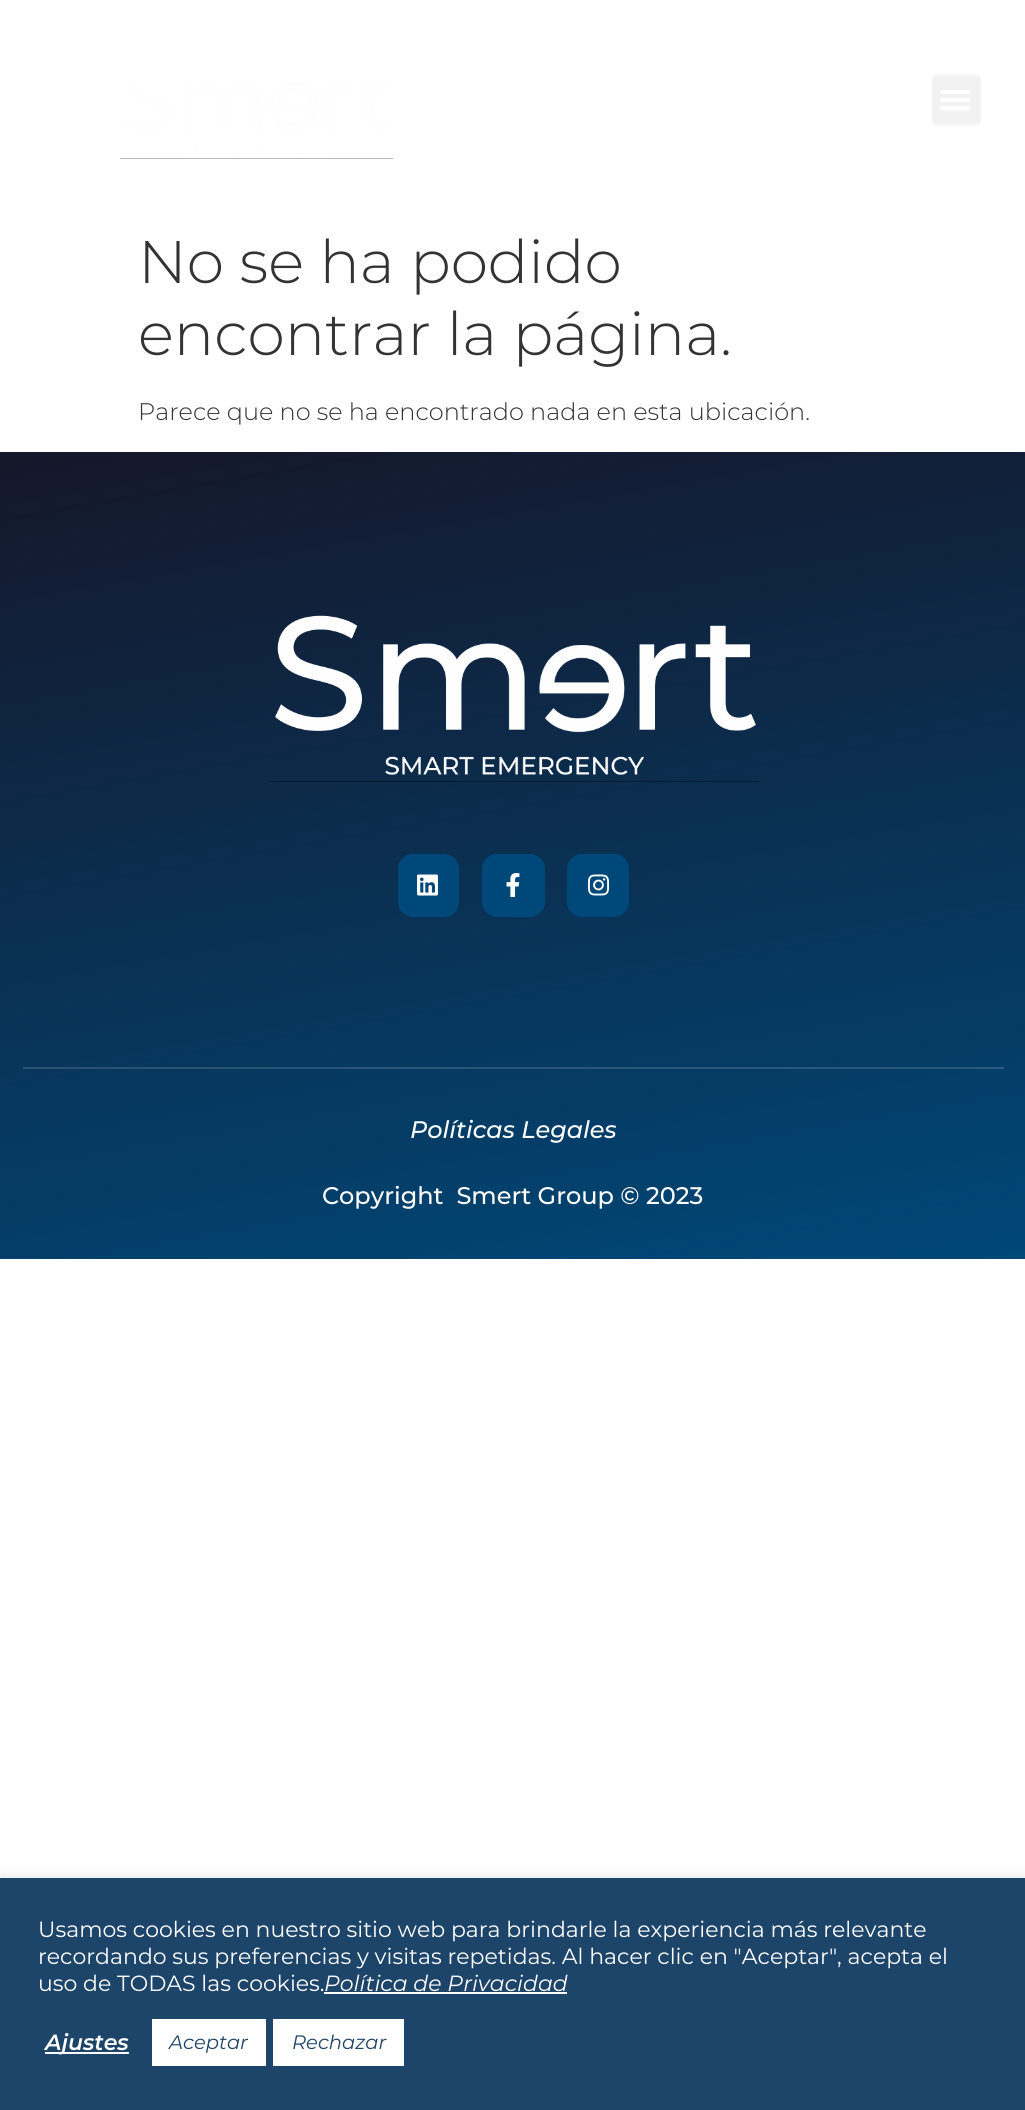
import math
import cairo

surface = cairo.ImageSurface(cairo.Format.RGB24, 1025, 2110)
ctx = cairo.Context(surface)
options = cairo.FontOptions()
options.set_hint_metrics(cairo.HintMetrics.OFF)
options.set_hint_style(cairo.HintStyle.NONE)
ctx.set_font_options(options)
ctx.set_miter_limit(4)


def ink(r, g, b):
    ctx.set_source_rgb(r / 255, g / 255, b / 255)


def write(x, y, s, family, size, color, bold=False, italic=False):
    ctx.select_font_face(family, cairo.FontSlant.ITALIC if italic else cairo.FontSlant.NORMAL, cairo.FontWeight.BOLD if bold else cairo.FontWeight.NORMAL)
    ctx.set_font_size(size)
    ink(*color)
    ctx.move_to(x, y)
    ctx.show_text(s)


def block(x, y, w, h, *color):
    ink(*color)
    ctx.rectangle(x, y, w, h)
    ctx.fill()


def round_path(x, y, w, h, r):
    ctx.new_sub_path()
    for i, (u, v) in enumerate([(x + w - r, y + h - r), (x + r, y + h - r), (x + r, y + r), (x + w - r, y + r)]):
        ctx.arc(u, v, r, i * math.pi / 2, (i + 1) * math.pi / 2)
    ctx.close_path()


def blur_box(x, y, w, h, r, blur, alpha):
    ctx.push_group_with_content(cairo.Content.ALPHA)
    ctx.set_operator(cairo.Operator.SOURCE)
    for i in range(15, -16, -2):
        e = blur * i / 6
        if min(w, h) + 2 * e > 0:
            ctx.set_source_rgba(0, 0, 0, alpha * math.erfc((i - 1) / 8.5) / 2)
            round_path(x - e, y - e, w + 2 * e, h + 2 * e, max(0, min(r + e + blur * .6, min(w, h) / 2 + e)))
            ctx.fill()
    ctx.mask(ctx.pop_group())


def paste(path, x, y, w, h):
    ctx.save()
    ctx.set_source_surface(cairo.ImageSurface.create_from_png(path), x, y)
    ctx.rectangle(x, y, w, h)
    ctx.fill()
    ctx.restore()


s1 = dict(family="Montserrat Light", size=60, color=(51, 51, 51))
s2 = dict(family="Montserrat Light", size=24, color=(51, 51, 51))
s3 = dict(family="Montserrat Medium", size=24, color=(255, 255, 255), italic=True)
s4 = dict(family="Montserrat Medium", size=24, color=(255, 255, 255))
s5 = dict(family="Montserrat", size=22, color=(255, 255, 255))
s6 = dict(family="Montserrat", size=22, color=(255, 255, 255), italic=True)
s7 = dict(family="Montserrat SemiBold", size=22, color=(255, 255, 255), italic=True)
s8 = dict(family="Montserrat", size=19.5, color=(29, 68, 105), italic=True)

ink(255, 255, 255)
ctx.paint()
paste("pic1.png", 120, 83, 273, 76)
ink(242, 242, 242)
round_path(932, 75, 49, 50, 5)
ctx.fill()
paste("pic2.png", 940, 90, 31, 21)
write(138, 283, "No se ha podido", **s1)
write(138, 355, "encontrar la página.", **s1)
write(138, 420, "Parece que no se ha encontrado nada en esta ubicación.", **s2)
gradient = cairo.LinearGradient(429, 376, 597, 1334)
gradient.add_color_stop_rgba(0, 0.082, 0.09, 0.165, 1)
gradient.add_color_stop_rgba(1, 0, 0.282, 0.471, 1)
ctx.set_source(gradient)
ctx.rectangle(0, 452, 1025, 807)
ctx.fill()
gradient = cairo.LinearGradient(429, 376, 597, 1334)
gradient.add_color_stop_rgba(0, 0.212, 0.216, 0.282, 1)
gradient.add_color_stop_rgba(1, 0.141, 0.384, 0.545, 1)
ctx.set_source(gradient)
ctx.rectangle(23, 1067, 981, 2)
ctx.fill()
paste("pic3.png", 268, 615, 491, 167)
ink(0, 72, 121)
round_path(398, 854, 61, 63, 15)
ctx.fill()
paste("pic4.png", 417, 874, 21, 22)
round_path(482, 854, 63, 63, 15)
ctx.fill()
paste("pic5.png", 506, 873, 14, 24)
round_path(567, 854, 62, 63, 15)
ctx.fill()
paste("pic6.png", 588, 874, 22, 22)
write(410, 1138, "Políticas Legales", **s3)
write(322, 1204, "Copyright  Smert Group © 2023", **s4)
ink(172, 171, 171)
blur_box(0, 1877, 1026, 232, 0, 7.5, 0.3)
block(0, 1878, 1025, 232, 29, 68, 105)
write(38, 1937, "Usamos cookies en nuestro sitio web para brindarle la experiencia más relevante", **s5)
write(38, 1964, "recordando sus preferencias y visitas repetidas. Al hacer clic en \"Aceptar\", acepta el", **s5)
write(38, 1991, "uso de TODAS las cookies.", **s5)
write(324, 1991, "Política de Privacidad", **s6)
block(324, 1992, 243, 2, 255, 255, 255)
block(45, 2052, 84, 2, 255, 255, 255)
write(45, 2050, "Ajustes", **s7)
block(152, 2019, 114, 47, 255, 255, 255)
write(169, 2049, "Aceptar", **s8)
block(273, 2019, 131, 47, 255, 255, 255)
write(292, 2049, "Rechazar", **s8)
surface.write_to_png("screenshot.png")
